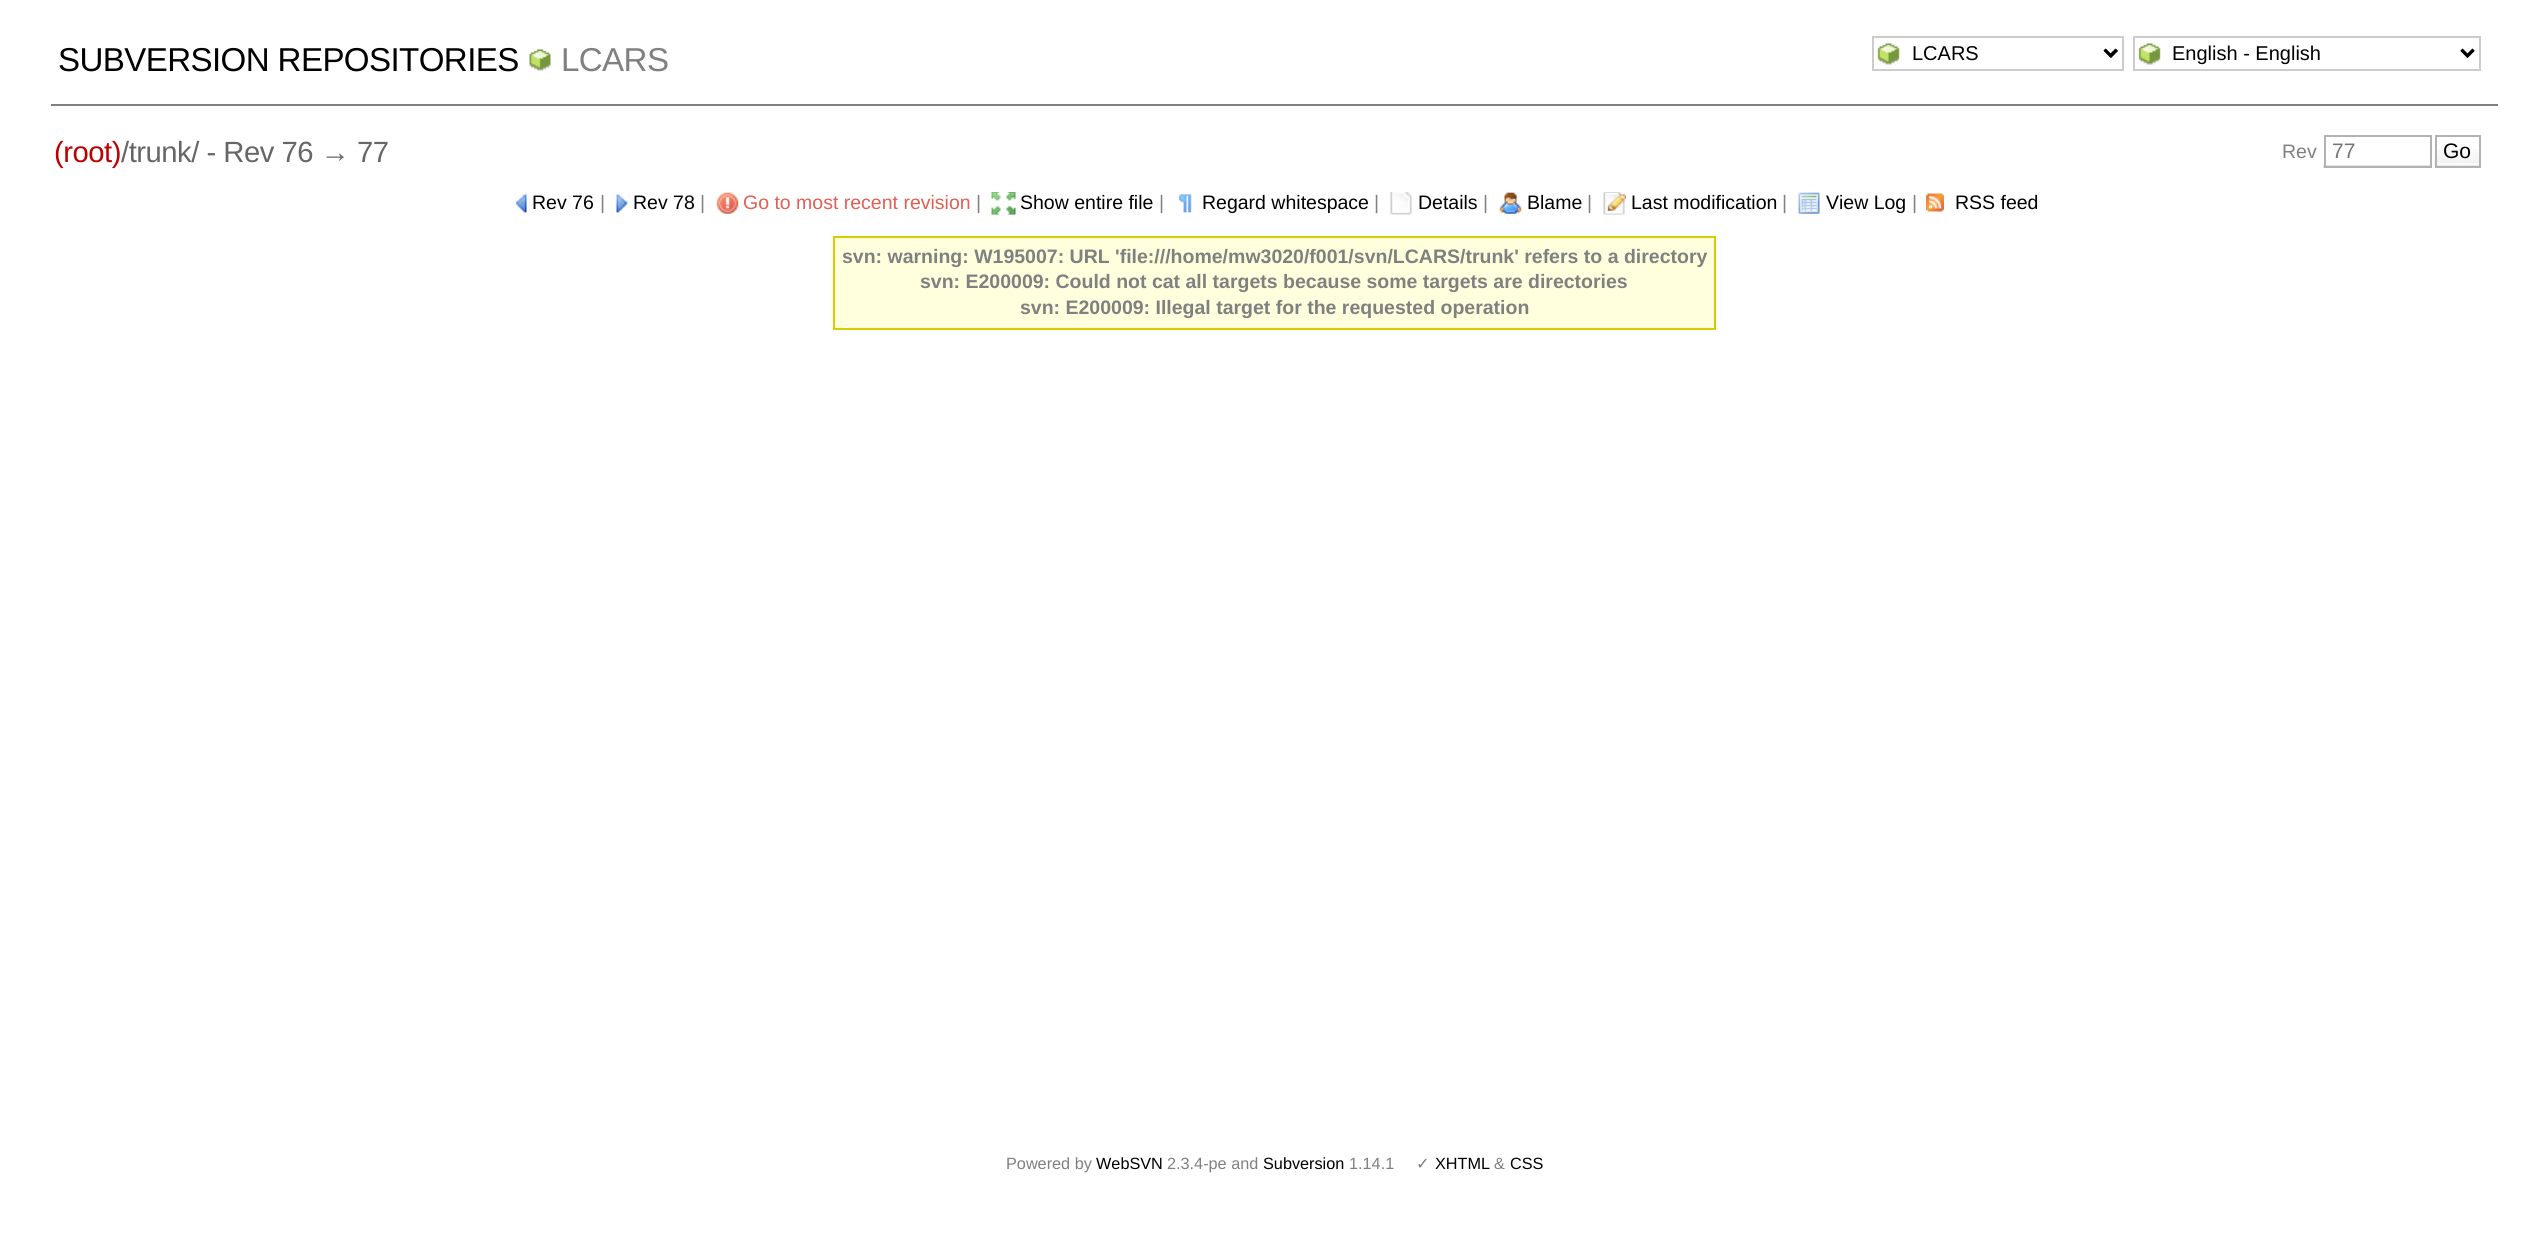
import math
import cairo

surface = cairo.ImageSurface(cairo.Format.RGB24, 2548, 1253)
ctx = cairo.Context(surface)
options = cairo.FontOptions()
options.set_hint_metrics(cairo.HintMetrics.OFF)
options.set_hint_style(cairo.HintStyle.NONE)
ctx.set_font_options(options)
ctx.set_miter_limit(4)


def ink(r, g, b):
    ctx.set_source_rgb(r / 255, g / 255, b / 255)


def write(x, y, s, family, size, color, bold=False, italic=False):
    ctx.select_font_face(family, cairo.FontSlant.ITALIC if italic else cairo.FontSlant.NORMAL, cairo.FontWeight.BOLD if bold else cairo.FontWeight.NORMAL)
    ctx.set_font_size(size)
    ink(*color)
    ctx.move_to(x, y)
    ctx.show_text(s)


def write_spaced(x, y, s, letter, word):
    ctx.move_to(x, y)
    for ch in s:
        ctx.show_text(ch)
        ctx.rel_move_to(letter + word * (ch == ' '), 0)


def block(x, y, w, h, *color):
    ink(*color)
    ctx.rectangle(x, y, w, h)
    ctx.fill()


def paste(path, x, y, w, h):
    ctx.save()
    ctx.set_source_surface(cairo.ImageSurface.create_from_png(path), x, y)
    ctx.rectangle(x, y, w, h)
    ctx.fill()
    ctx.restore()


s1 = dict(family="Liberation Sans", size=20, color=(0, 0, 0))
s2 = dict(family="Liberation Sans", size=19.5, color=(128, 128, 128))
s3 = dict(family="Liberation Sans", size=21, color=(117, 117, 117))
s4 = dict(family="Liberation Sans", size=21, color=(0, 0, 0))
s5 = dict(family="Liberation Sans", size=19.5, color=(0, 0, 0))
s6 = dict(family="Liberation Sans", size=19.5, color=(226, 95, 83))
s7 = dict(family="Liberation Sans", size=19.5, color=(128, 128, 128), bold=True)
s8 = dict(family="Liberation Sans", size=16.25, color=(128, 128, 128))
s9 = dict(family="Liberation Sans", size=16.25, color=(0, 0, 0))
s10 = dict(family="DejaVu Sans", size=16.25, color=(128, 128, 128))

ink(255, 255, 255)
ctx.paint()
block(51, 104, 2447, 2, 128, 128, 128)
ctx.select_font_face("Liberation Sans")
ctx.set_font_size(33.1)
ink(0, 0, 0)
write_spaced(58, 71, "SUBVERSION REPOSITORIES", -0.6, 0)
paste("pic1.png", 529, 49, 22, 22)
ink(128, 128, 128)
write_spaced(561, 71, "LCARS", -0.6, 0)
paste("pic2.png", 1877, 43, 241, 22)
ctx.rectangle(1873, 37, 250, 33)
ink(204, 204, 204)
ctx.stroke()
ctx.new_path()
ctx.move_to(2105, 50)
ctx.line_to(2111, 56)
ctx.line_to(2117, 50)
ink(0, 0, 0)
ctx.set_line_width(3)
ctx.stroke()
write(1912, 60, "LCARS", **s1)
paste("pic3.png", 2138, 43, 337, 22)
ctx.rectangle(2134, 37, 346, 33)
ink(204, 204, 204)
ctx.set_line_width(2)
ctx.stroke()
ctx.new_path()
ctx.move_to(2461.5, 50)
ctx.line_to(2467.5, 56)
ctx.line_to(2473.5, 50)
ink(0, 0, 0)
ctx.set_line_width(3)
ctx.stroke()
write(2172, 60, "English - English", **s1)
ctx.set_font_size(29.25)
ink(187, 0, 0)
write_spaced(54, 162, "(root)", -0.5, 0)
ink(102, 102, 102)
write_spaced(121, 162, "/trunk/ - Rev 76 → 77", -0.5, 0)
write(2282, 158, "Rev", **s2)
block(2323, 165, 109, 3, 230, 230, 230)
ctx.rectangle(2325, 136, 106, 31)
ink(178, 178, 178)
ctx.set_line_width(2)
ctx.stroke()
write(2332, 158, "77", **s3)
paste("pic4.png", 2434, 149, 45, 18)
ctx.rectangle(2436, 136, 44, 31)
ink(178, 178, 178)
ctx.stroke()
write(2443, 158, "Go", **s4)
paste("pic5.png", 515, 194, 12, 19)
write(532, 209, "Rev 76", **s5)
write(600, 209, "|", **s2)
paste("pic6.png", 616, 194, 12, 19)
write(633, 209, "Rev 78", **s5)
write(700, 209, "|", **s2)
paste("pic7.png", 716, 192, 23, 22)
write(743, 209, "Go to most recent revision", **s6)
write(976, 209, "|", **s2)
paste("pic8.png", 991, 192, 25, 23)
write(1020, 209, "Show entire file", **s5)
write(1159, 209, "|", **s2)
paste("pic9.png", 1178, 194, 14, 19)
write(1202, 209, "Regard whitespace", **s5)
write(1374, 209, "|", **s2)
paste("pic10.png", 1390, 192, 22, 23)
write(1418, 209, "Details", **s5)
write(1483, 209, "|", **s2)
paste("pic11.png", 1499, 192, 23, 22)
write(1527, 209, "Blame", **s5)
write(1587, 209, "|", **s2)
paste("pic12.png", 1603, 192, 23, 23)
write(1631, 209, "Last modification", **s5)
write(1782, 209, "|", **s2)
paste("pic13.png", 1798, 192, 22, 22)
write(1826, 209, "View Log", **s5)
write(1912, 209, "|", **s2)
paste("pic14.png", 1926, 193, 18, 19)
write(1955, 209, "RSS feed", **s5)
ink(255, 255, 221)
ctx.rectangle(834, 237, 881, 92)
ctx.fill_preserve()
ink(213, 206, 0)
ctx.stroke()
write(842, 263, "svn: warning: W195007: URL 'file:///home/mw3020/f001/svn/LCARS/trunk' refers to a directory", **s7)
write(920, 288, "svn: E200009: Could not cat all targets because some targets are directories", **s7)
write(1020, 314, "svn: E200009: Illegal target for the requested operation", **s7)
write(1006, 1169, "Powered by", **s8)
write(1096, 1169, "WebSVN", **s9)
write(1167, 1169, "2.3.4-pe and", **s8)
write(1263, 1169, "Subversion", **s9)
write(1349, 1169, "1.14.1", **s8)
write(1416, 1169, "✓", **s10)
write(1435, 1169, "XHTML", **s9)
write(1494, 1169, "&", **s8)
write(1510, 1169, "CSS", **s9)
surface.write_to_png("screenshot.png")
